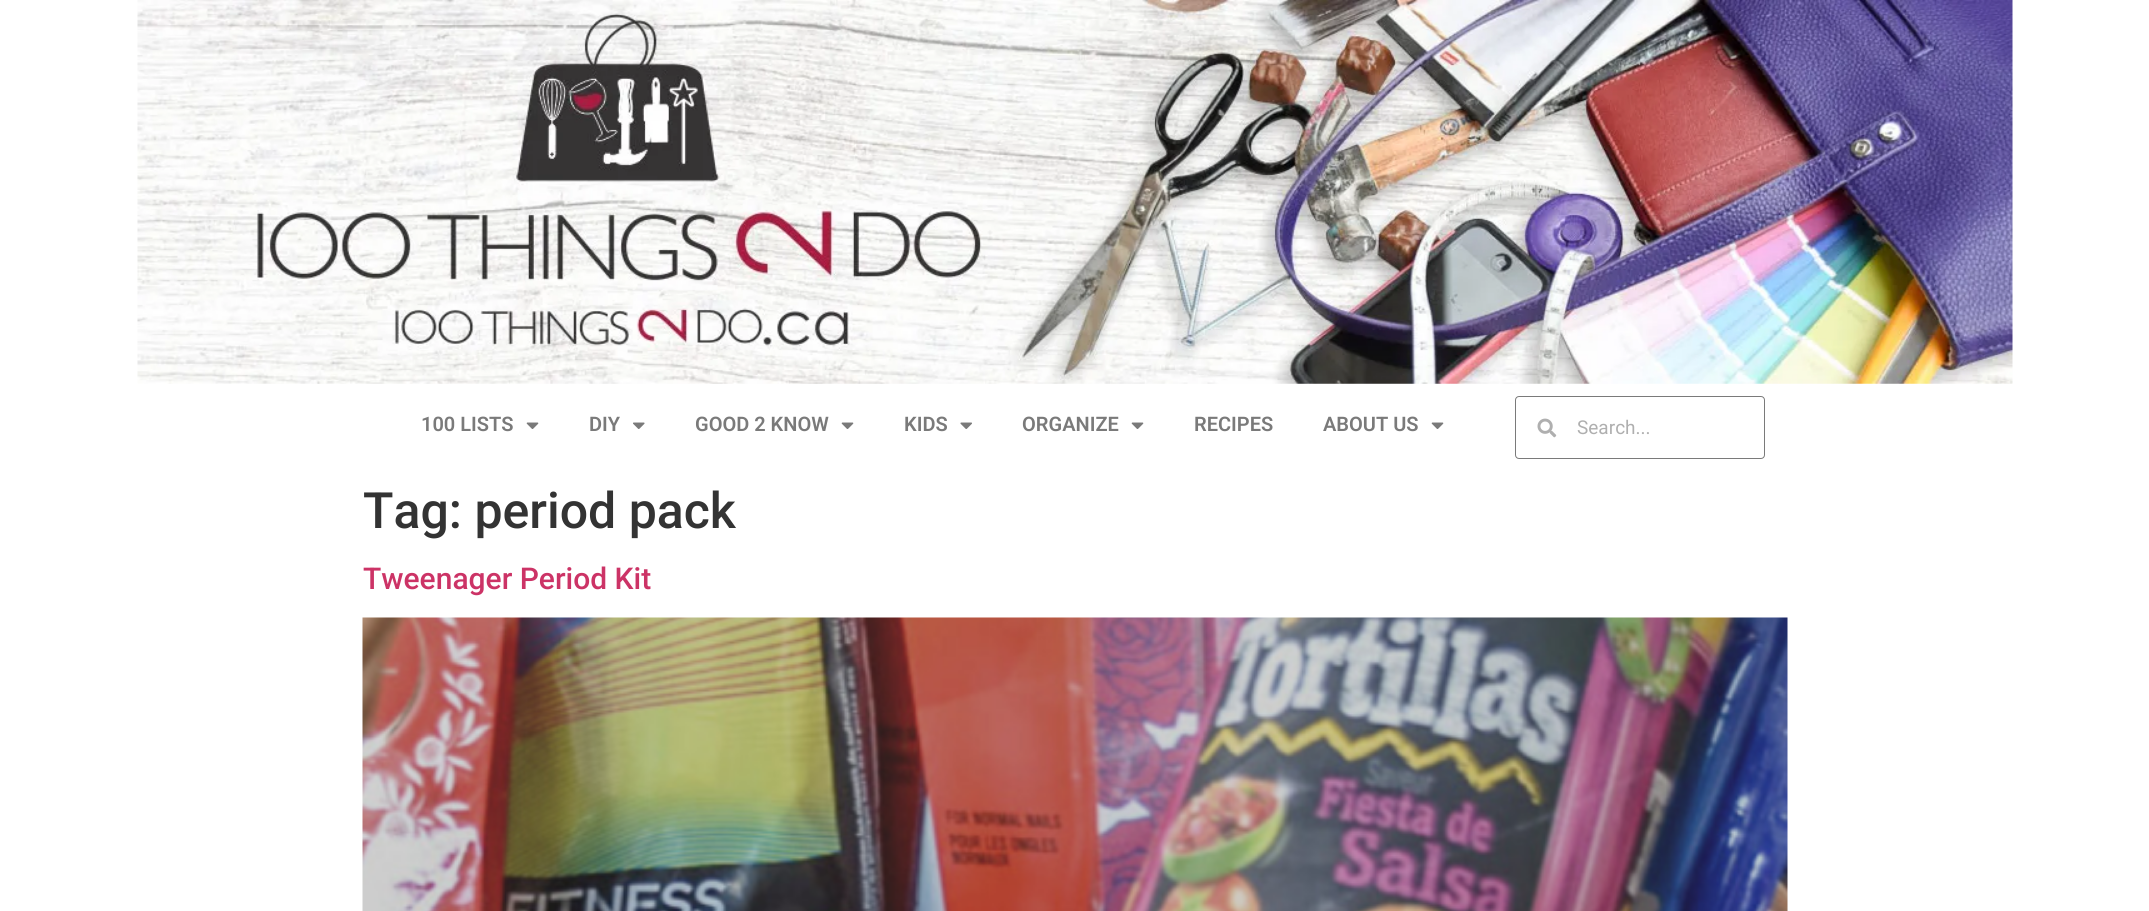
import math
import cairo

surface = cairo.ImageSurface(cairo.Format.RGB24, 2149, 911)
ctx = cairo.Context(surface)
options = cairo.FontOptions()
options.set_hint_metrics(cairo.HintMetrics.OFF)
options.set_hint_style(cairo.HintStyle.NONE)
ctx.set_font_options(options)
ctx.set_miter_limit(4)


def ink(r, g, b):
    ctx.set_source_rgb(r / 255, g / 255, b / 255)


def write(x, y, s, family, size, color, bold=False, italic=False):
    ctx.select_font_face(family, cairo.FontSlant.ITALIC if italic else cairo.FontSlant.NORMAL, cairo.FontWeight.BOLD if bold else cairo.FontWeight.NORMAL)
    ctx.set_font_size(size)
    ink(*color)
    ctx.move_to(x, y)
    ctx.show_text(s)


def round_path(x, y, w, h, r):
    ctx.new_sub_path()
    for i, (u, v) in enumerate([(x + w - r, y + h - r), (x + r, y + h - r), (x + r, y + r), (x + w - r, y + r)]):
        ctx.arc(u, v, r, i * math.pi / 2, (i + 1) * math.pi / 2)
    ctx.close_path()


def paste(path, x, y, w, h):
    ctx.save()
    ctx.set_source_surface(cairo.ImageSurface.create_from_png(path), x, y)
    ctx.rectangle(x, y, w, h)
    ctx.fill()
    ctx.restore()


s1 = dict(family="Roboto SemiBold", size=20, color=(122, 122, 122))
s2 = dict(family="Roboto", size=19, color=(175, 175, 175))
s3 = dict(family="Roboto Medium", size=50, color=(51, 51, 51))
s4 = dict(family="Roboto Medium", size=30, color=(204, 51, 102))

ink(255, 255, 255)
ctx.paint()
paste("pic1.png", 137, 0, 1876, 384)
write(421, 431, "100 LISTS", **s1)
paste("pic2.png", 526, 422, 13, 7)
write(589, 431, "DIY", **s1)
paste("pic3.png", 633, 422, 12, 7)
write(695, 431, "GOOD 2 KNOW", **s1)
paste("pic2.png", 841, 422, 13, 7)
write(904, 431, "KIDS", **s1)
paste("pic4.png", 960, 422, 12, 7)
write(1022, 431, "ORGANIZE", **s1)
paste("pic2.png", 1131, 422, 13, 7)
write(1194, 431, "RECIPES", **s1)
write(1323, 431, "ABOUT US", **s1)
paste("pic2.png", 1431, 422, 13, 7)
round_path(1515.5, 396.5, 249, 62, 3.5)
ctx.set_line_width(1)
ctx.stroke()
paste("pic5.png", 1537, 418, 20, 20)
write(1577, 434, "Search...", **s2)
write(363, 528, "Tag: period pack", **s3)
write(363, 589, "Tweenager Period Kit", **s4)
paste("pic6.png", 362, 617, 1426, 294)
surface.write_to_png("screenshot.png")
